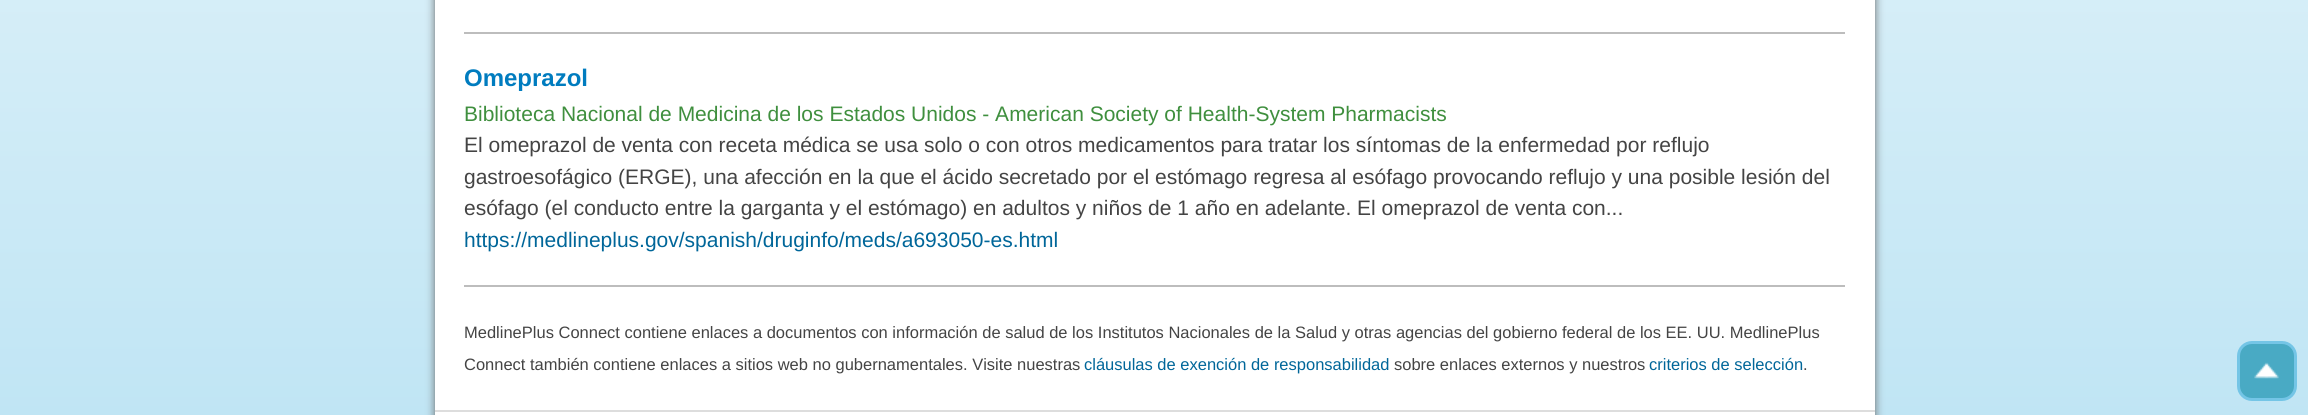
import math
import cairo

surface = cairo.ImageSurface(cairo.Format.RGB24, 2308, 415)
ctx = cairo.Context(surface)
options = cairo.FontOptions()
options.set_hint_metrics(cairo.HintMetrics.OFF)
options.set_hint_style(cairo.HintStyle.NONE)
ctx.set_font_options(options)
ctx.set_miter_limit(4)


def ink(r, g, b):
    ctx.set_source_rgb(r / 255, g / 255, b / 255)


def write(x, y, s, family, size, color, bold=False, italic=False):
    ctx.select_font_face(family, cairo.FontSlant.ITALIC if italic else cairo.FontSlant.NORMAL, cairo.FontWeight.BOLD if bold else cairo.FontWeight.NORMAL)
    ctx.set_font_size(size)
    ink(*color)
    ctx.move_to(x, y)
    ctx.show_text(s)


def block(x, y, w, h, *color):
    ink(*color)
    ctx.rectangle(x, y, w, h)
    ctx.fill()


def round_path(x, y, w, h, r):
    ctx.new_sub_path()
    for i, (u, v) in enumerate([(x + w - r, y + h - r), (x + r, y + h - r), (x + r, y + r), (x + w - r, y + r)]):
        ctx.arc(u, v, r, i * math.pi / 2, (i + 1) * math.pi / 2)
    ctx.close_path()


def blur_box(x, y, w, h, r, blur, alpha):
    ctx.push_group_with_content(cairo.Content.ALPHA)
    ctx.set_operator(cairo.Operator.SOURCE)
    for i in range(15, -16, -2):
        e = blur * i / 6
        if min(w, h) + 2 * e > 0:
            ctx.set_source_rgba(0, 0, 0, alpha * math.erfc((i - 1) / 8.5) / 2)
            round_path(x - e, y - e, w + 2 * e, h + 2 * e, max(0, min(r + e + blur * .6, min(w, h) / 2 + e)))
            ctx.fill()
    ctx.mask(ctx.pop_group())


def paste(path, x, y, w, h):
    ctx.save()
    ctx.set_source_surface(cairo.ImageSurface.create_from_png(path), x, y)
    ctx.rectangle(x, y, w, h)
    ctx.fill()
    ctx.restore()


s1 = dict(family="Liberation Sans", size=24, color=(0, 124, 191), bold=True)
s2 = dict(family="Liberation Sans", size=21, color=(63, 143, 62))
s3 = dict(family="Liberation Sans", size=21, color=(68, 68, 68))
s4 = dict(family="Liberation Sans", size=21, color=(0, 102, 153))
s5 = dict(family="Liberation Sans", size=16.5, color=(68, 68, 68))
s6 = dict(family="Liberation Sans", size=16.5, color=(0, 102, 153))

ink(255, 255, 255)
ctx.paint()
gradient = cairo.LinearGradient(1154, -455, 1154, 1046)
gradient.add_color_stop_rgba(0, 0.996, 1, 1, 1)
gradient.add_color_stop_rgba(0.2, 0.867, 0.945, 0.976, 1)
gradient.add_color_stop_rgba(1, 0.627, 0.847, 0.937, 1)
ctx.set_source(gradient)
ctx.rectangle(0, 0, 2308, 415)
ctx.fill()
ink(102, 102, 102)
blur_box(435, -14, 1440, 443, 0, 4.5, 1)
block(435, 0, 1440, 415, 255, 255, 255)
block(464, 32, 1381, 2, 189, 189, 189)
write(464, 86, "Omeprazol", **s1)
write(464, 121, "Biblioteca Nacional de Medicina de los Estados Unidos - American Society of Health-System Pharmacists", **s2)
write(464, 152, "El omeprazol de venta con receta médica se usa solo o con otros medicamentos para tratar los síntomas de la enfermedad por reflujo", **s3)
write(464, 184, "gastroesofágico (ERGE), una afección en la que el ácido secretado por el estómago regresa al esófago provocando reflujo y una posible lesión del", **s3)
write(464, 215, "esófago (el conducto entre la garganta y el estómago) en adultos y niños de 1 año en adelante. El omeprazol de venta con...", **s3)
write(464, 247, "https://medlineplus.gov/spanish/druginfo/meds/a693050-es.html", **s4)
block(464, 285, 1381, 2, 189, 189, 189)
write(464, 338, "MedlinePlus Connect contiene enlaces a documentos con información de salud de los Institutos Nacionales de la Salud y otras agencias del gobierno federal de los EE. UU. MedlinePlus", **s5)
write(464, 370, "Connect también contiene enlaces a sitios web no gubernamentales. Visite nuestras", **s5)
write(1084, 370, "cláusulas de exención de responsabilidad", **s6)
write(1394, 370, "sobre enlaces externos y nuestros", **s5)
write(1649, 370, "criterios de selección", **s6)
write(1803, 370, ".", **s5)
block(435, 410, 1440, 2, 221, 221, 221)
ink(73, 170, 196)
round_path(2238.5, 342.5, 57, 57, 13.5)
ctx.fill_preserve()
ink(116, 197, 230)
ctx.set_line_width(3)
ctx.stroke()
paste("pic1.png", 2254, 362, 25, 17)
surface.write_to_png("screenshot.png")
